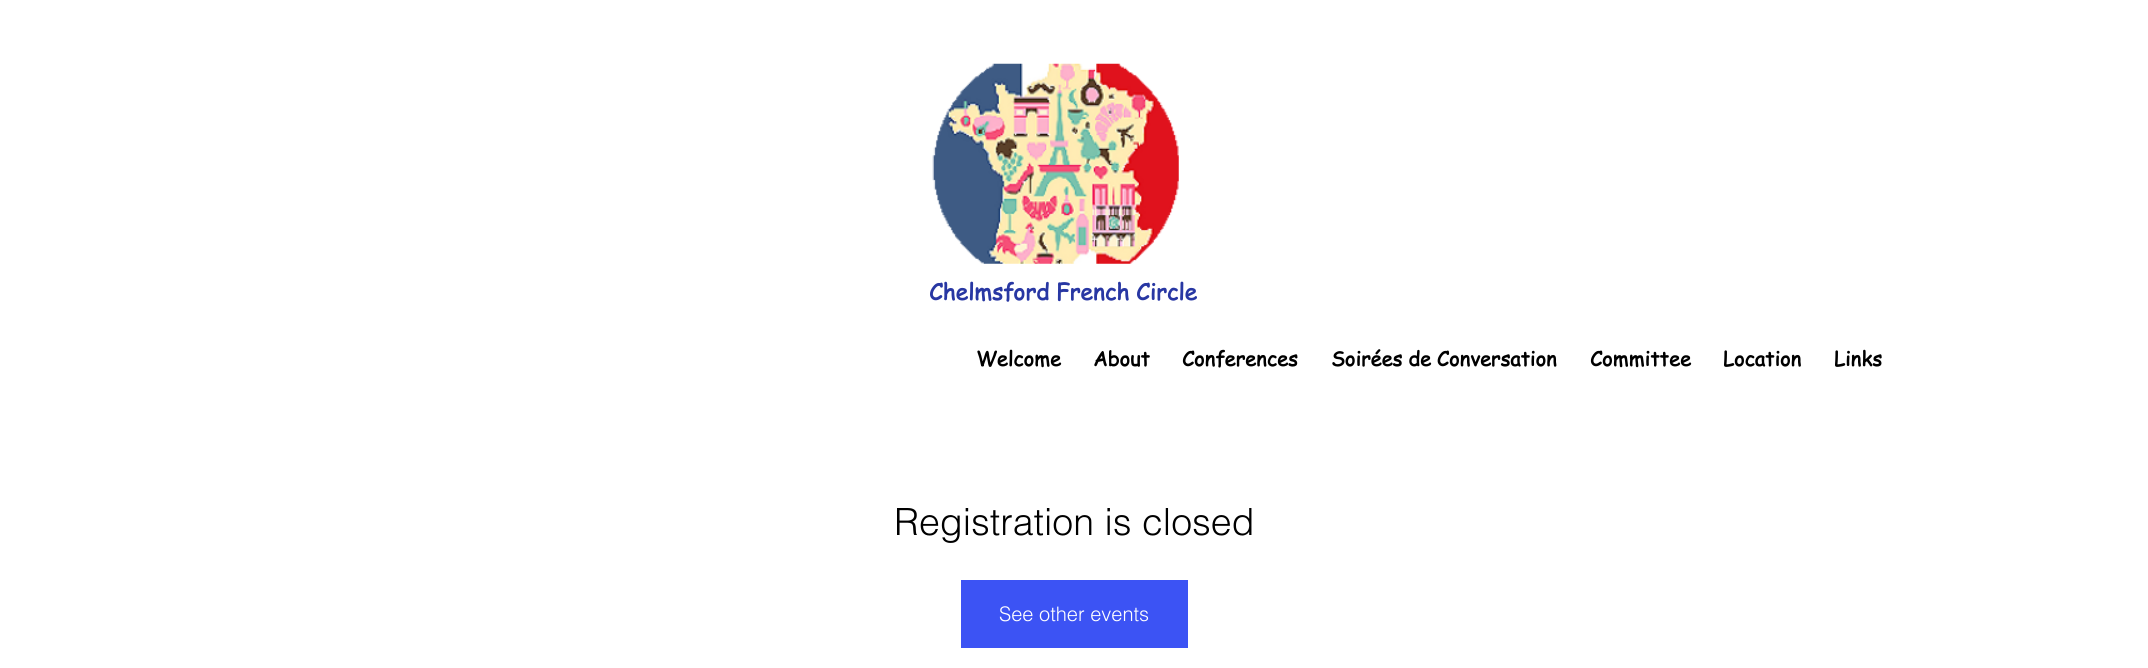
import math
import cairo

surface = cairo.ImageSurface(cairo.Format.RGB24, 2148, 668)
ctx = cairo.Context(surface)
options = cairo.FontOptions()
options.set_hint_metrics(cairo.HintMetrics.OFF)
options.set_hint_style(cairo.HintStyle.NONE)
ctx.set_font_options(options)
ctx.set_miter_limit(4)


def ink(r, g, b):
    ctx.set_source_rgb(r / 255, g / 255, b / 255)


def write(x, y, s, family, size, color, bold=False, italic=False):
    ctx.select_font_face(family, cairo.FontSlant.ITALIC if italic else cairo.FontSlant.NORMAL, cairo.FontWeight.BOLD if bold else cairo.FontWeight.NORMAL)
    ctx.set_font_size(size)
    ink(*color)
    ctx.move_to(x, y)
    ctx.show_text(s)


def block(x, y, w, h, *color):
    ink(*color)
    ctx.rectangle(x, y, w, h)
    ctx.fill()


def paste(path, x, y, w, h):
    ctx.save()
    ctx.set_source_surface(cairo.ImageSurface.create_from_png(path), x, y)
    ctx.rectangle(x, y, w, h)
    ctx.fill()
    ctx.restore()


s1 = dict(family="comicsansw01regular", size=22.5, color=(40, 55, 163), bold=True)
s2 = dict(family="comicsansw01regular", size=20, color=(0, 0, 0), bold=True)
s3 = dict(family="helvetica Light", size=37.5, color=(0, 0, 0))
s4 = dict(family="helvetica Light", size=20, color=(255, 255, 255))

ink(255, 255, 255)
ctx.paint()
paste("pic1.png", 932, 63, 247, 201)
write(929, 300, "Chelmsford French Circle", **s1)
write(976, 366, "Welcome", **s2)
write(1093, 366, "About", **s2)
write(1182, 366, "Conferences", **s2)
write(1331, 366, "Soirées de Conversation", **s2)
write(1590, 366, "Committee", **s2)
write(1723, 366, "Location", **s2)
write(1834, 366, "Links", **s2)
write(894, 535, "Registration is closed", **s3)
block(961, 580, 227, 68, 60, 83, 244)
write(999, 621, "See other events", **s4)
surface.write_to_png("screenshot.png")
